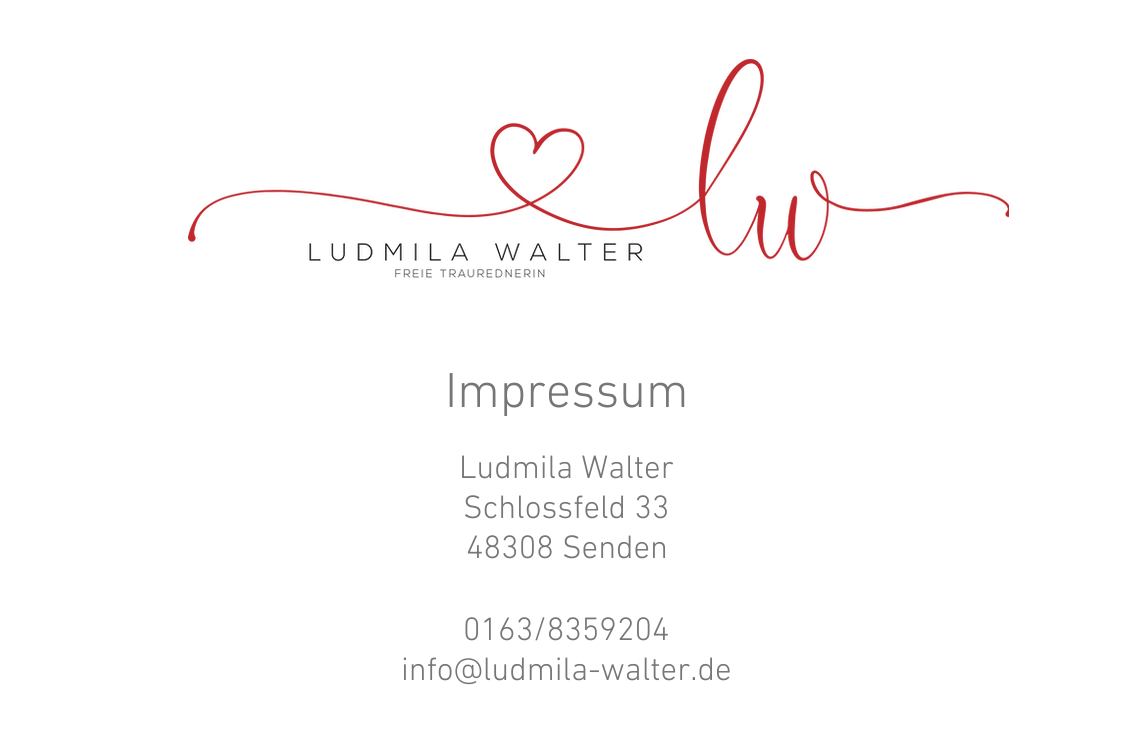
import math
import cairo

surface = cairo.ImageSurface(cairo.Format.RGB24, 1134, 740)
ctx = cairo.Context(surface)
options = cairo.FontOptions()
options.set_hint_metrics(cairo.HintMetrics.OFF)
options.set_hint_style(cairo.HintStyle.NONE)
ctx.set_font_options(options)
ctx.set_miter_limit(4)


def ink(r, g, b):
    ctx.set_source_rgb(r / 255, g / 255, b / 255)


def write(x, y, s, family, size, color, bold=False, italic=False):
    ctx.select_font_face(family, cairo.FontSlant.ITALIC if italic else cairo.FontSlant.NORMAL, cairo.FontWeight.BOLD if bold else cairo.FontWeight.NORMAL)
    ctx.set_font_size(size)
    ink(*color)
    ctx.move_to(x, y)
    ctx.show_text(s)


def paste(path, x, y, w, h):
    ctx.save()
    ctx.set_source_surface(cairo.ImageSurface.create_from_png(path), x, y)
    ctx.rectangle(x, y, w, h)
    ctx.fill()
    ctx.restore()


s1 = dict(family="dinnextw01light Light", size=50, color=(118, 118, 118))
s2 = dict(family="dinnextw01light Light", size=33, color=(118, 118, 118))

ink(255, 255, 255)
ctx.paint()
paste("pic1.png", 188, 59, 821, 219)
write(445, 407, "Impressum", **s1)
write(459, 478, "Ludmila Walter", **s2)
write(463, 518, "Schlossfeld 33", **s2)
write(466, 558, "48308 Senden", **s2)
write(463, 640, "0163/8359204", **s2)
write(401, 680, "info@ludmila-walter.de", **s2)
surface.write_to_png("screenshot.png")
